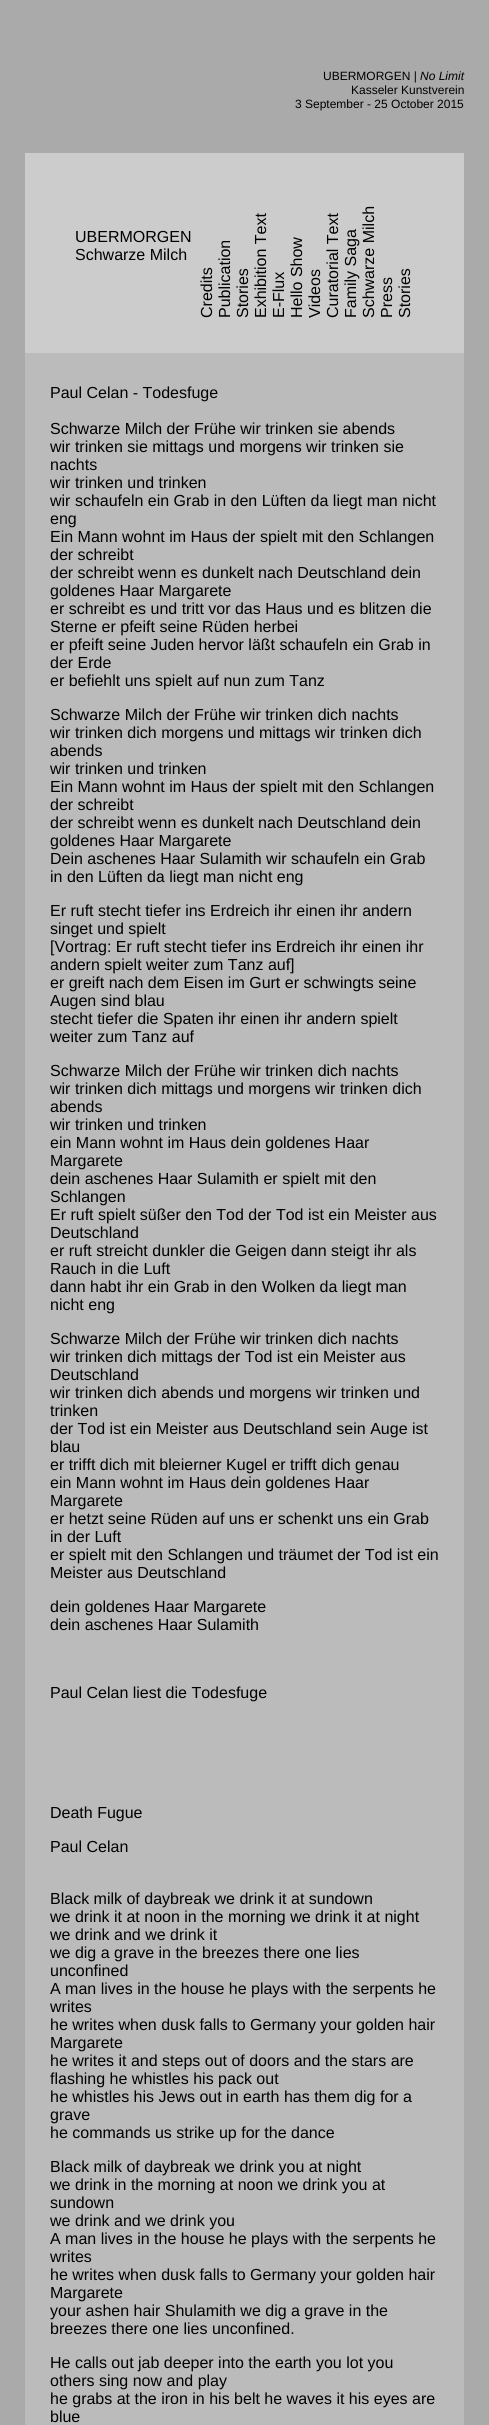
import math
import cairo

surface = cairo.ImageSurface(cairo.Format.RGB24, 489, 2425)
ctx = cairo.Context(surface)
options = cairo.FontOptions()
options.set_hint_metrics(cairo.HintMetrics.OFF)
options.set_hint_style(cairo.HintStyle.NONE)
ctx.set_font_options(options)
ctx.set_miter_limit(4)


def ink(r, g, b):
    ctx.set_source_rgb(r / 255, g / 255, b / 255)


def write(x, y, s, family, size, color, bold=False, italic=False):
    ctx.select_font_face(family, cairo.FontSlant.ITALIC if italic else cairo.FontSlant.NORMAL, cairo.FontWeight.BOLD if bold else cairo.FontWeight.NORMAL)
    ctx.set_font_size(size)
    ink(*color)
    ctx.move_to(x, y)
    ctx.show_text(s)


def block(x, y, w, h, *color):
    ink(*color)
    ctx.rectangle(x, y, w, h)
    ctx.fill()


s1 = dict(family="Liberation Sans", size=12, color=(0, 0, 0))
s2 = dict(family="Liberation Sans", size=12, color=(0, 0, 0), italic=True)
s3 = dict(family="Liberation Sans", size=16, color=(0, 0, 0))

ink(170, 170, 170)
ctx.paint()
write(323, 80, "UBERMORGEN |", **s1)
write(420, 80, "No Limit", **s2)
write(351, 94, "Kasseler Kunstverein", **s1)
write(295, 108, "3 September - 25 October 2015", **s1)
block(25, 153, 439, 200, 204, 204, 204)
write(75, 242, "UBERMORGEN", **s3)
write(75, 260, "Schwarze Milch", **s3)
ctx.save()
ctx.translate(212, 318)
ctx.rotate(-90 * math.pi / 180)
write(0, 0, "Credits", **s3)
ctx.restore()
ctx.save()
ctx.translate(230, 318)
ctx.rotate(-90 * math.pi / 180)
write(0, 0, "Publication", **s3)
ctx.restore()
ctx.save()
ctx.translate(248, 318)
ctx.rotate(-90 * math.pi / 180)
write(0, 0, "Stories", **s3)
ctx.restore()
ctx.save()
ctx.translate(266, 318)
ctx.rotate(-90 * math.pi / 180)
write(0, 0, "Exhibition Text", **s3)
ctx.restore()
ctx.save()
ctx.translate(284, 318)
ctx.rotate(-90 * math.pi / 180)
write(0, 0, "E-Flux", **s3)
ctx.restore()
ctx.save()
ctx.translate(302, 318)
ctx.rotate(-90 * math.pi / 180)
write(0, 0, "Hello Show", **s3)
ctx.restore()
ctx.save()
ctx.translate(320, 318)
ctx.rotate(-90 * math.pi / 180)
write(0, 0, "Videos", **s3)
ctx.restore()
ctx.save()
ctx.translate(338, 318)
ctx.rotate(-90 * math.pi / 180)
write(0, 0, "Curatorial Text", **s3)
ctx.restore()
ctx.save()
ctx.translate(356, 318)
ctx.rotate(-90 * math.pi / 180)
write(0, 0, "Family Saga", **s3)
ctx.restore()
ctx.save()
ctx.translate(374, 318)
ctx.rotate(-90 * math.pi / 180)
write(0, 0, "Schwarze Milch", **s3)
ctx.restore()
ctx.save()
ctx.translate(392, 318)
ctx.rotate(-90 * math.pi / 180)
write(0, 0, "Press", **s3)
ctx.restore()
ctx.save()
ctx.translate(410, 318)
ctx.rotate(-90 * math.pi / 180)
write(0, 0, "Stories", **s3)
ctx.restore()
block(25, 353, 439, 2072, 187, 187, 187)
write(50, 398, "Paul Celan - Todesfuge", **s3)
write(50, 434, "Schwarze Milch der Frühe wir trinken sie abends", **s3)
write(50, 452, "wir trinken sie mittags und morgens wir trinken sie", **s3)
write(50, 470, "nachts", **s3)
write(50, 488, "wir trinken und trinken", **s3)
write(50, 506, "wir schaufeln ein Grab in den Lüften da liegt man nicht", **s3)
write(50, 524, "eng", **s3)
write(50, 542, "Ein Mann wohnt im Haus der spielt mit den Schlangen", **s3)
write(50, 560, "der schreibt", **s3)
write(50, 578, "der schreibt wenn es dunkelt nach Deutschland dein", **s3)
write(50, 596, "goldenes Haar Margarete", **s3)
write(50, 614, "er schreibt es und tritt vor das Haus und es blitzen die", **s3)
write(50, 632, "Sterne er pfeift seine Rüden herbei", **s3)
write(50, 650, "er pfeift seine Juden hervor läßt schaufeln ein Grab in", **s3)
write(50, 668, "der Erde", **s3)
write(50, 686, "er befiehlt uns spielt auf nun zum Tanz", **s3)
write(50, 720, "Schwarze Milch der Frühe wir trinken dich nachts", **s3)
write(50, 738, "wir trinken dich morgens und mittags wir trinken dich", **s3)
write(50, 756, "abends", **s3)
write(50, 774, "wir trinken und trinken", **s3)
write(50, 792, "Ein Mann wohnt im Haus der spielt mit den Schlangen", **s3)
write(50, 810, "der schreibt", **s3)
write(50, 828, "der schreibt wenn es dunkelt nach Deutschland dein", **s3)
write(50, 846, "goldenes Haar Margarete", **s3)
write(50, 864, "Dein aschenes Haar Sulamith wir schaufeln ein Grab", **s3)
write(50, 882, "in den Lüften da liegt man nicht eng", **s3)
write(50, 916, "Er ruft stecht tiefer ins Erdreich ihr einen ihr andern", **s3)
write(50, 934, "singet und spielt", **s3)
write(50, 952, "[Vortrag: Er ruft stecht tiefer ins Erdreich ihr einen ihr", **s3)
write(50, 970, "andern spielt weiter zum Tanz auf]", **s3)
write(50, 988, "er greift nach dem Eisen im Gurt er schwingts seine", **s3)
write(50, 1006, "Augen sind blau", **s3)
write(50, 1024, "stecht tiefer die Spaten ihr einen ihr andern spielt", **s3)
write(50, 1042, "weiter zum Tanz auf", **s3)
write(50, 1076, "Schwarze Milch der Frühe wir trinken dich nachts", **s3)
write(50, 1094, "wir trinken dich mittags und morgens wir trinken dich", **s3)
write(50, 1112, "abends", **s3)
write(50, 1130, "wir trinken und trinken", **s3)
write(50, 1148, "ein Mann wohnt im Haus dein goldenes Haar", **s3)
write(50, 1166, "Margarete", **s3)
write(50, 1184, "dein aschenes Haar Sulamith er spielt mit den", **s3)
write(50, 1202, "Schlangen", **s3)
write(50, 1220, "Er ruft spielt süßer den Tod der Tod ist ein Meister aus", **s3)
write(50, 1238, "Deutschland", **s3)
write(50, 1256, "er ruft streicht dunkler die Geigen dann steigt ihr als", **s3)
write(50, 1274, "Rauch in die Luft", **s3)
write(50, 1292, "dann habt ihr ein Grab in den Wolken da liegt man", **s3)
write(50, 1310, "nicht eng", **s3)
write(50, 1344, "Schwarze Milch der Frühe wir trinken dich nachts", **s3)
write(50, 1362, "wir trinken dich mittags der Tod ist ein Meister aus", **s3)
write(50, 1380, "Deutschland", **s3)
write(50, 1398, "wir trinken dich abends und morgens wir trinken und", **s3)
write(50, 1416, "trinken", **s3)
write(50, 1434, "der Tod ist ein Meister aus Deutschland sein Auge ist", **s3)
write(50, 1452, "blau", **s3)
write(50, 1470, "er trifft dich mit bleierner Kugel er trifft dich genau", **s3)
write(50, 1488, "ein Mann wohnt im Haus dein goldenes Haar", **s3)
write(50, 1506, "Margarete", **s3)
write(50, 1524, "er hetzt seine Rüden auf uns er schenkt uns ein Grab", **s3)
write(50, 1542, "in der Luft", **s3)
write(50, 1560, "er spielt mit den Schlangen und träumet der Tod ist ein", **s3)
write(50, 1578, "Meister aus Deutschland", **s3)
write(50, 1612, "dein goldenes Haar Margarete", **s3)
write(50, 1630, "dein aschenes Haar Sulamith", **s3)
write(50, 1698, "Paul Celan liest die Todesfuge", **s3)
write(50, 1818, "Death Fugue", **s3)
write(50, 1852, "Paul Celan", **s3)
write(50, 1904, "Black milk of daybreak we drink it at sundown", **s3)
write(50, 1922, "we drink it at noon in the morning we drink it at night", **s3)
write(50, 1940, "we drink and we drink it", **s3)
write(50, 1958, "we dig a grave in the breezes there one lies", **s3)
write(50, 1976, "unconfined", **s3)
write(50, 1994, "A man lives in the house he plays with the serpents he", **s3)
write(50, 2012, "writes", **s3)
write(50, 2030, "he writes when dusk falls to Germany your golden hair", **s3)
write(50, 2048, "Margarete", **s3)
write(50, 2066, "he writes it and steps out of doors and the stars are", **s3)
write(50, 2084, "flashing he whistles his pack out", **s3)
write(50, 2102, "he whistles his Jews out in earth has them dig for a", **s3)
write(50, 2120, "grave", **s3)
write(50, 2138, "he commands us strike up for the dance", **s3)
write(50, 2172, "Black milk of daybreak we drink you at night", **s3)
write(50, 2190, "we drink in the morning at noon we drink you at", **s3)
write(50, 2208, "sundown", **s3)
write(50, 2226, "we drink and we drink you", **s3)
write(50, 2244, "A man lives in the house he plays with the serpents he", **s3)
write(50, 2262, "writes", **s3)
write(50, 2280, "he writes when dusk falls to Germany your golden hair", **s3)
write(50, 2298, "Margarete", **s3)
write(50, 2316, "your ashen hair Shulamith we dig a grave in the", **s3)
write(50, 2334, "breezes there one lies unconfined.", **s3)
write(50, 2368, "He calls out jab deeper into the earth you lot you", **s3)
write(50, 2386, "others sing now and play", **s3)
write(50, 2404, "he grabs at the iron in his belt he waves it his eyes are", **s3)
write(50, 2422, "blue", **s3)
surface.write_to_png("screenshot.png")
